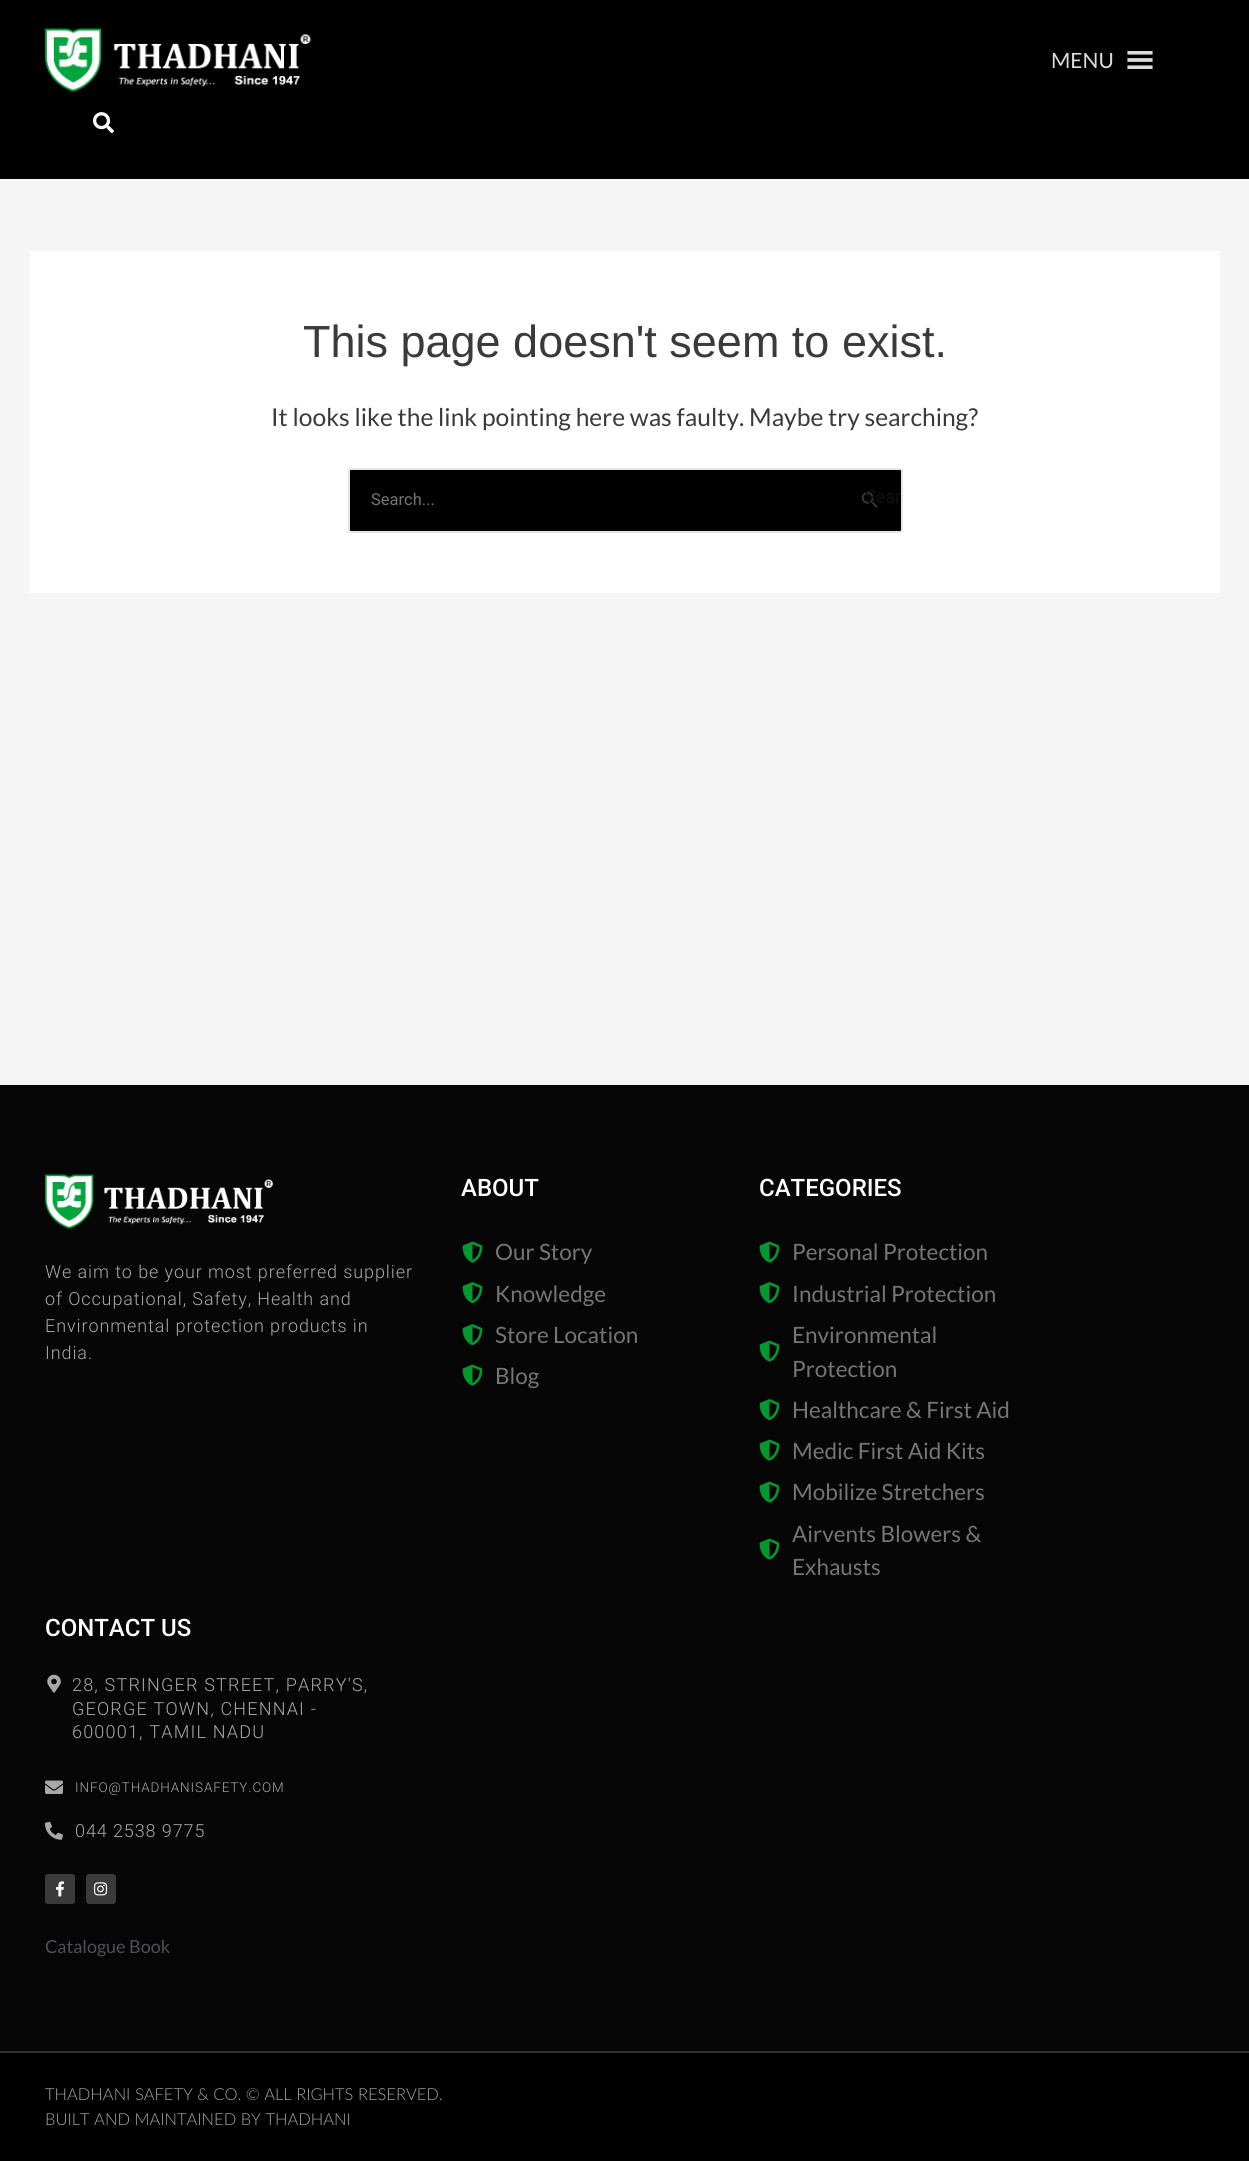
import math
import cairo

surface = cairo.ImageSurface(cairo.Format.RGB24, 1249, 2161)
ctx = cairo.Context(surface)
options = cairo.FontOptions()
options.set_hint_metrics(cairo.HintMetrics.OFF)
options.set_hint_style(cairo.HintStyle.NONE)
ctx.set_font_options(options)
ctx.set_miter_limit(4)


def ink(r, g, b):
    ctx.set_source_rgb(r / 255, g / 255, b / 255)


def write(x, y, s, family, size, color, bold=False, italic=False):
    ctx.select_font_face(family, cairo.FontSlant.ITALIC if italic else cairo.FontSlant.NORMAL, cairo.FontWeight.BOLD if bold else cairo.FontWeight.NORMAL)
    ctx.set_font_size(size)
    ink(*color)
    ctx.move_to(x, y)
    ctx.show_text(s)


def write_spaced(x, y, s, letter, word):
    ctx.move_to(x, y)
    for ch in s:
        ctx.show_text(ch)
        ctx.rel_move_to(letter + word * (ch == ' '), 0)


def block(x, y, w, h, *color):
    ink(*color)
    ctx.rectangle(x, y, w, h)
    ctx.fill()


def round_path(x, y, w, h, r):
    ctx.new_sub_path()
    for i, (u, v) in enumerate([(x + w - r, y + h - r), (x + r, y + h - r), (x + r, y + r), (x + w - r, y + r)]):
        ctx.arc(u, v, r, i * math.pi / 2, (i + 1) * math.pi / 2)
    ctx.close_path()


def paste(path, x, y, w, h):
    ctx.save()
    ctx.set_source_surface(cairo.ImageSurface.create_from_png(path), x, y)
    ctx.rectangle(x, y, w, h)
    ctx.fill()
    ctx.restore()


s1 = dict(family="Lato", size=21, color=(221, 221, 221))
s2 = dict(family="Liberation Sans", size=45, color=(58, 58, 58))
s3 = dict(family="Lato", size=24.6, color=(58, 58, 58))
s4 = dict(family="Roboto", size=16.5, color=(117, 117, 117))
s5 = dict(family="Roboto", size=18, color=(17, 17, 17))
s6 = dict(family="Roboto Medium", size=24, color=(255, 255, 255))
s7 = dict(family="Lato", size=22.5, color=(117, 117, 117))
s8 = dict(family="Lato", size=18, color=(75, 79, 88))
s9 = dict(family="Lato Light", size=16.5, color=(168, 168, 168))

ink(245, 245, 245)
ctx.paint()
block(0, 0, 1249, 179, 0, 0, 0)
paste("pic1.png", 45, 28, 266, 64)
write(1051, 68, "MENU", **s1)
paste("pic2.png", 1127, 51, 26, 18)
paste("pic3.png", 93, 112, 21, 22)
block(30, 251, 1190, 342, 255, 255, 255)
write(303, 357, "This page doesn't seem to exist.", **s2)
write(271, 426, "It looks like the link pointing here was faulty. Maybe try searching?", **s3)
ink(0, 0, 0)
round_path(349, 469, 553, 63, 2)
ctx.fill_preserve()
ink(229, 229, 229)
ctx.stroke()
write(371, 505, "Search...", **s4)
paste("pic4.png", 861, 492, 17, 16)
write(865, 503, "Sear", **s5)
block(0, 1085, 1249, 966, 6, 6, 6)
paste("pic5.png", 45, 1174, 228, 55)
ctx.select_font_face("Roboto Light")
ink(168, 168, 168)
write_spaced(45, 1278, "We aim to be your most preferred supplier", 0.9, 0)
write_spaced(45, 1305, "of Occupational, Safety, Health and", 0.9, 0)
write_spaced(45, 1332, "Environmental protection products in", 0.9, 0)
write_spaced(45, 1359, "India.", 0.9, 0)
write(461, 1196, "ABOUT", **s6)
paste("pic6.png", 462, 1241, 21, 22)
write(495, 1260, "Our Story", **s7)
paste("pic7.png", 462, 1282, 21, 22)
write(495, 1302, "Knowledge", **s7)
paste("pic7.png", 462, 1324, 21, 22)
write(495, 1343, "Store Location", **s7)
paste("pic6.png", 462, 1364, 21, 22)
write(495, 1384, "Blog", **s7)
write(759, 1196, "CATEGORIES", **s6)
paste("pic6.png", 759, 1241, 21, 22)
write(792, 1260, "Personal Protection", **s7)
paste("pic7.png", 759, 1282, 21, 22)
write(792, 1302, "Industrial Protection", **s7)
paste("pic6.png", 759, 1340, 21, 22)
write(792, 1343, "Environmental", **s7)
write(792, 1377, "Protection", **s7)
paste("pic7.png", 759, 1399, 21, 22)
write(792, 1418, "Healthcare & First Aid", **s7)
paste("pic6.png", 759, 1439, 21, 22)
write(792, 1459, "Medic First Aid Kits", **s7)
paste("pic6.png", 759, 1481, 21, 22)
write(792, 1500, "Mobilize Stretchers", **s7)
paste("pic6.png", 759, 1538, 21, 22)
write(792, 1542, "Airvents Blowers &", **s7)
write(792, 1575, "Exhausts", **s7)
write(45, 1636, "CONTACT US", **s6)
paste("pic8.png", 47, 1674, 14, 19)
ctx.select_font_face("Roboto Light")
ctx.set_font_size(18)
ink(168, 168, 168)
write_spaced(72, 1691, "28, STRINGER STREET, PARRY'S,", 1.2, 0)
write_spaced(72, 1715, "GEORGE TOWN, CHENNAI -", 1.2, 0)
write_spaced(72, 1738, "600001, TAMIL NADU", 1.2, 0)
paste("pic9.png", 45, 1780, 18, 14)
ctx.set_font_size(13.5)
write_spaced(75, 1792, "INFO@THADHANISAFETY.COM", 0.9, 0)
paste("pic10.png", 45, 1821, 18, 19)
ctx.set_font_size(18)
write_spaced(75, 1837, "044 2538 9775", 0.9, 0)
ink(58, 58, 58)
round_path(45, 1874, 30, 30, 3)
ctx.fill()
paste("pic11.png", 56, 1881, 8, 16)
round_path(86, 1874, 30, 30, 3)
ctx.fill()
paste("pic12.png", 93, 1882, 15, 14)
write(45, 1953, "Catalogue Book", **s8)
block(0, 2053, 1249, 108, 0, 0, 0)
block(0, 2051, 1249, 2, 48, 48, 48)
write(45, 2100, "THADHANI SAFETY & CO. © ALL RIGHTS RESERVED.", **s9)
write(45, 2125, "BUILT AND MAINTAINED BY THADHANI", **s9)
surface.write_to_png("screenshot.png")
